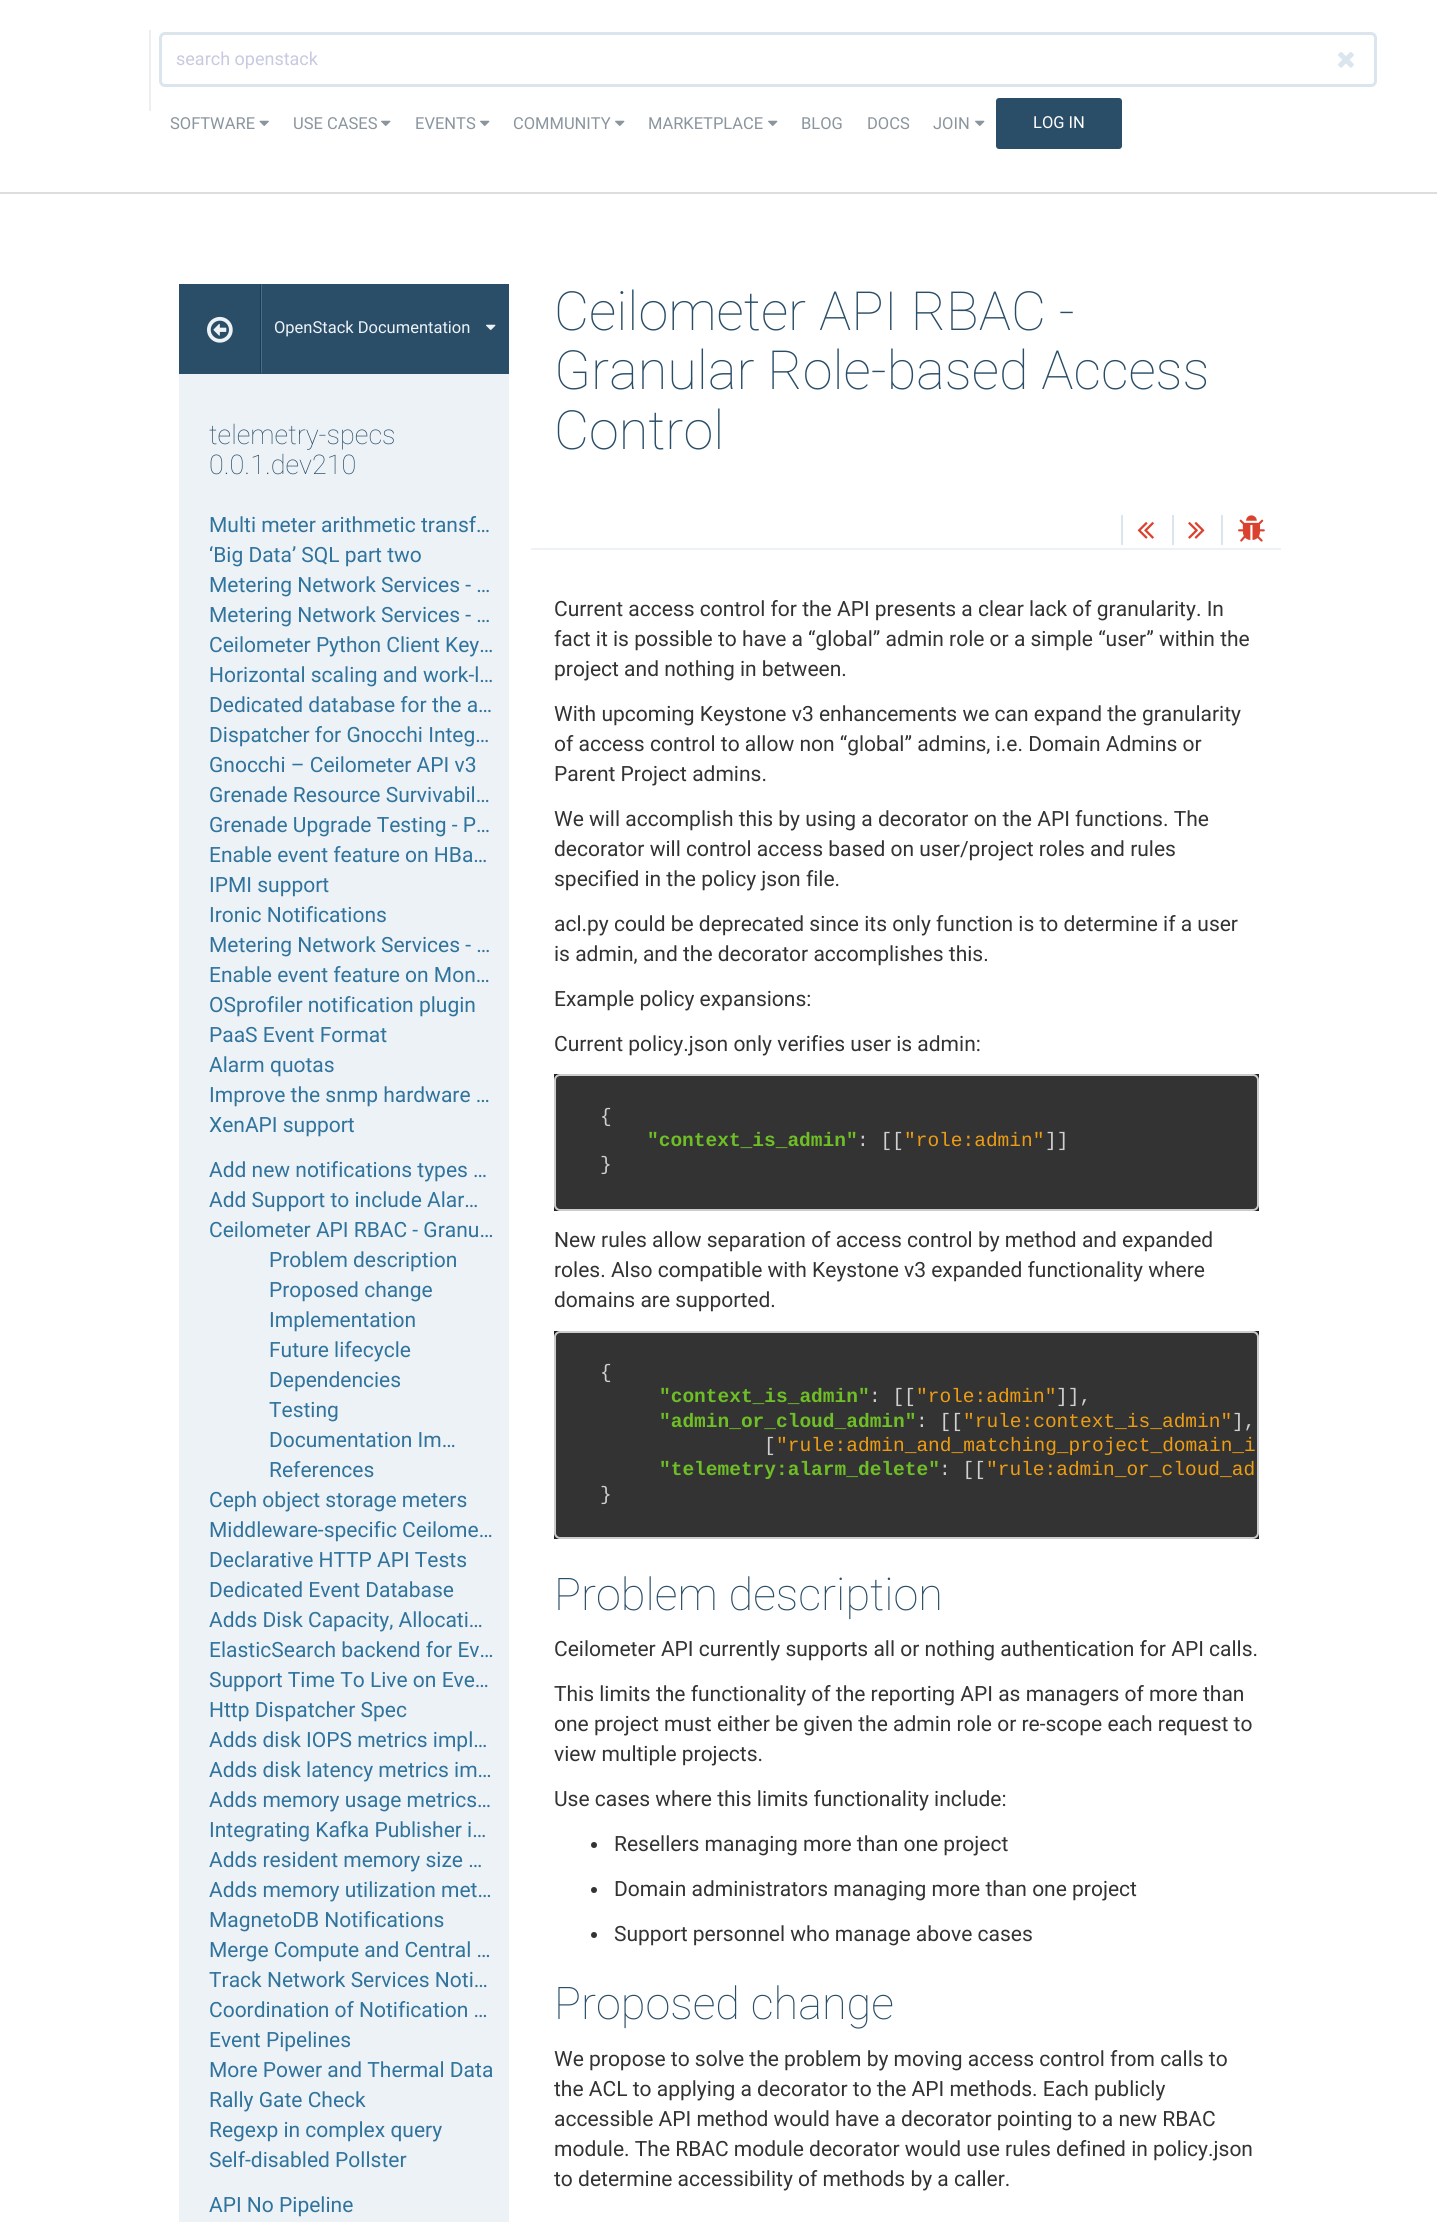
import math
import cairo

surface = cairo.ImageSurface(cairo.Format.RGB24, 1437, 2222)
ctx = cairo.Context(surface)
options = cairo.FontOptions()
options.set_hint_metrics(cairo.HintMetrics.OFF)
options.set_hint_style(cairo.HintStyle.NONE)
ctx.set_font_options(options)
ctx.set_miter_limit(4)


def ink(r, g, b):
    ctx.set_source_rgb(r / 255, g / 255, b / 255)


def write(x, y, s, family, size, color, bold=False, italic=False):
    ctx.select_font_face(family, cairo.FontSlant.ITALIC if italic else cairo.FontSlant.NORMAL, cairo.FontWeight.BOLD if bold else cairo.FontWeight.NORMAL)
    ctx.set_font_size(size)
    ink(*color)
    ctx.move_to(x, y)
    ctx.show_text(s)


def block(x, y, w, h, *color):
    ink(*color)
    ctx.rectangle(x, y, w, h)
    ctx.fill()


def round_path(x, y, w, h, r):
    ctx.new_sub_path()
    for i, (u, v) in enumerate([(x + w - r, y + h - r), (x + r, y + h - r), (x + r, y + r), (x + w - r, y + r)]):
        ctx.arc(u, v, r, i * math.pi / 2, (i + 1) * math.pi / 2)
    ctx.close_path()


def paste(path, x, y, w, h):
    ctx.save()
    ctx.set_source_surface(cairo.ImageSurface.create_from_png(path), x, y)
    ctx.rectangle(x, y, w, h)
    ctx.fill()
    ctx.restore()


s1 = dict(family="Roboto", size=18, color=(199, 202, 224))
s2 = dict(family="Roboto", size=16.5, color=(138, 149, 158))
s3 = dict(family="Roboto", size=16.5, color=(255, 255, 255))
s4 = dict(family="Roboto", size=16.5, color=(237, 242, 247))
s5 = dict(family="Roboto Thin", size=27, color=(42, 78, 104))
s6 = dict(family="Roboto", size=21, color=(48, 115, 156))
s7 = dict(family="Roboto Thin", size=54, color=(42, 78, 104))
s8 = dict(family="Roboto", size=21, color=(51, 51, 51))
s9 = dict(family="Liberation Mono", size=19.5, color=(208, 208, 208))
s10 = dict(family="Liberation Mono", size=19.5, color=(110, 191, 38), bold=True)
s11 = dict(family="Liberation Mono", size=19.5, color=(237, 157, 19))
s12 = dict(family="Roboto Thin", size=45, color=(42, 78, 104))

ink(255, 255, 255)
ctx.paint()
block(0, 192, 1437, 2, 221, 221, 221)
block(149, 30, 2, 81, 238, 238, 238)
round_path(160.5, 33.5, 1215, 52, 4.5)
ink(218, 229, 238)
ctx.set_line_width(3)
ctx.stroke()
write(176, 65, "search openstack", **s1)
paste("pic1.png", 1338, 52, 16, 16)
write(170, 129, "SOFTWARE", **s2)
paste("pic2.png", 259, 120, 10, 6)
write(293, 129, "USE CASES", **s2)
paste("pic3.png", 381, 120, 10, 6)
write(415, 129, "EVENTS", **s2)
paste("pic3.png", 480, 120, 10, 6)
write(513, 129, "COMMUNITY", **s2)
paste("pic3.png", 615, 120, 10, 6)
write(648, 129, "MARKETPLACE", **s2)
paste("pic3.png", 768, 120, 10, 6)
write(801, 129, "BLOG", **s2)
write(867, 129, "DOCS", **s2)
write(933, 129, "JOIN", **s2)
paste("pic3.png", 975, 120, 10, 6)
ink(42, 78, 104)
round_path(996, 98, 126, 51, 3)
ctx.fill()
write(1033, 128, "LOG IN", **s3)
block(179, 284, 330, 90, 42, 78, 104)
ink(28, 59, 83)
ctx.new_path()
ctx.move_to(261, 284)
ctx.line_to(261, 374)
ctx.line_to(260, 372)
ctx.line_to(260, 285)
ctx.close_path()
ctx.fill()
paste("pic4.png", 207, 316, 26, 27)
ink(73, 110, 138)
ctx.new_path()
ctx.move_to(261, 374)
ctx.line_to(261, 284)
ctx.line_to(262, 285)
ctx.line_to(262, 372)
ctx.close_path()
ctx.fill()
write(274, 333, "OpenStack Documentation", **s4)
paste("pic5.png", 486, 324, 10, 6)
block(179, 374, 330, 1848, 237, 242, 247)
write(209, 444, "telemetry-specs", **s5)
write(209, 474, "0.0.1.dev210", **s5)
write(209, 532, "Multi meter arithmetic transf…", **s6)
write(209, 562, "‘Big Data’ SQL part two", **s6)
write(209, 592, "Metering Network Services - …", **s6)
write(209, 622, "Metering Network Services - …", **s6)
write(209, 652, "Ceilometer Python Client Key…", **s6)
write(209, 682, "Horizontal scaling and work-l…", **s6)
write(209, 712, "Dedicated database for the a…", **s6)
write(209, 742, "Dispatcher for Gnocchi Integ…", **s6)
write(209, 772, "Gnocchi – Ceilometer API v3", **s6)
write(209, 802, "Grenade Resource Survivabil…", **s6)
write(209, 832, "Grenade Upgrade Testing - P…", **s6)
write(209, 862, "Enable event feature on HBa…", **s6)
write(209, 892, "IPMI support", **s6)
write(209, 922, "Ironic Notifications", **s6)
write(209, 952, "Metering Network Services - …", **s6)
write(209, 982, "Enable event feature on Mon…", **s6)
write(209, 1012, "OSprofiler notification plugin", **s6)
write(209, 1042, "PaaS Event Format", **s6)
write(209, 1072, "Alarm quotas", **s6)
write(209, 1102, "Improve the snmp hardware …", **s6)
write(209, 1132, "XenAPI support", **s6)
write(209, 1177, "Add new notifications types …", **s6)
write(209, 1207, "Add Support to include Alar…", **s6)
write(209, 1237, "Ceilometer API RBAC - Granu…", **s6)
write(269, 1267, "Problem description", **s6)
write(269, 1297, "Proposed change", **s6)
write(269, 1327, "Implementation", **s6)
write(269, 1357, "Future lifecycle", **s6)
write(269, 1387, "Dependencies", **s6)
write(269, 1417, "Testing", **s6)
write(269, 1447, "Documentation Im…", **s6)
write(269, 1477, "References", **s6)
write(209, 1507, "Ceph object storage meters", **s6)
write(209, 1537, "Middleware-specific Ceilome…", **s6)
write(209, 1567, "Declarative HTTP API Tests", **s6)
write(209, 1597, "Dedicated Event Database", **s6)
write(209, 1627, "Adds Disk Capacity, Allocati…", **s6)
write(209, 1657, "ElasticSearch backend for Ev…", **s6)
write(209, 1687, "Support Time To Live on Eve…", **s6)
write(209, 1717, "Http Dispatcher Spec", **s6)
write(209, 1747, "Adds disk IOPS metrics impl…", **s6)
write(209, 1777, "Adds disk latency metrics im…", **s6)
write(209, 1807, "Adds memory usage metrics…", **s6)
write(209, 1837, "Integrating Kafka Publisher i…", **s6)
write(209, 1867, "Adds resident memory size …", **s6)
write(209, 1897, "Adds memory utilization met…", **s6)
write(209, 1927, "MagnetoDB Notifications", **s6)
write(209, 1957, "Merge Compute and Central …", **s6)
write(209, 1987, "Track Network Services Noti…", **s6)
write(209, 2017, "Coordination of Notification …", **s6)
write(209, 2047, "Event Pipelines", **s6)
write(209, 2077, "More Power and Thermal Data", **s6)
write(209, 2107, "Rally Gate Check", **s6)
write(209, 2137, "Regexp in complex query", **s6)
write(209, 2167, "Self-disabled Pollster", **s6)
write(209, 2212, "API No Pipeline", **s6)
block(531, 548, 750, 2, 237, 242, 247)
write(554, 330, "Ceilometer API RBAC -", **s7)
write(554, 389, "Granular Role-based Access", **s7)
write(554, 449, "Control", **s7)
block(1121, 515, 2, 30, 218, 229, 238)
paste("pic6.png", 1137, 522, 17, 17)
block(1172, 515, 2, 30, 218, 229, 238)
paste("pic7.png", 1188, 522, 17, 17)
block(1221, 515, 2, 30, 218, 229, 238)
paste("pic8.png", 1238, 515, 27, 27)
write(554, 616, "Current access control for the API presents a clear lack of granularity. In", **s8)
write(554, 646, "fact it is possible to have a “global” admin role or a simple “user” within the", **s8)
write(554, 676, "project and nothing in between.", **s8)
write(554, 721, "With upcoming Keystone v3 enhancements we can expand the granularity", **s8)
write(554, 751, "of access control to allow non “global” admins, i.e. Domain Admins or", **s8)
write(554, 781, "Parent Project admins.", **s8)
write(554, 826, "We will accomplish this by using a decorator on the API functions. The", **s8)
write(554, 856, "decorator will control access based on user/project roles and rules", **s8)
write(554, 886, "specified in the policy json file.", **s8)
write(554, 931, "acl.py could be deprecated since its only function is to determine if a user", **s8)
write(554, 961, "is admin, and the decorator accomplishes this.", **s8)
write(554, 1006, "Example policy expansions:", **s8)
write(554, 1051, "Current policy.json only verifies user is admin:", **s8)
block(554, 1074, 705, 137, 32, 32, 32)
ink(51, 51, 51)
round_path(555, 1075, 703, 135, 5)
ctx.fill_preserve()
ink(204, 204, 204)
ctx.set_line_width(2)
ctx.stroke()
write(600, 1122, "{", **s9)
write(647, 1146, "\"context_is_admin\"", **s10)
write(857, 1146, ": [[", **s9)
write(904, 1146, "\"role:admin\"", **s11)
write(1045, 1146, "]]", **s9)
write(600, 1170, "}", **s9)
write(554, 1247, "New rules allow separation of access control by method and expanded", **s8)
write(554, 1277, "roles. Also compatible with Keystone v3 expanded functionality where", **s8)
write(554, 1307, "domains are supported.", **s8)
block(554, 1331, 705, 208, 32, 32, 32)
ink(51, 51, 51)
round_path(555, 1332, 703, 206, 5)
ctx.fill_preserve()
ink(204, 204, 204)
ctx.stroke()
write(600, 1378, "{", **s9)
write(659, 1402, "\"context_is_admin\"", **s10)
write(869, 1402, ": [[", **s9)
write(916, 1402, "\"role:admin\"", **s11)
write(1056, 1402, "]],", **s9)
write(659, 1427, "\"admin_or_cloud_admin\"", **s10)
write(916, 1427, ": [[", **s9)
write(963, 1427, "\"rule:context_is_admin\"", **s11)
write(1232, 1427, "],", **s9)
write(764, 1451, "[", **s9)
write(776, 1451, "\"rule:admin_and_matching_project_domain_i", **s11)
write(659, 1475, "\"telemetry:alarm_delete\"", **s10)
write(939, 1475, ": [[", **s9)
write(986, 1475, "\"rule:admin_or_cloud_ad", **s11)
write(600, 1500, "}", **s9)
write(554, 1610, "Problem description", **s12)
write(554, 1656, "Ceilometer API currently supports all or nothing authentication for API calls.", **s8)
write(554, 1701, "This limits the functionality of the reporting API as managers of more than", **s8)
write(554, 1731, "one project must either be given the admin role or re-scope each request to", **s8)
write(554, 1761, "view multiple projects.", **s8)
write(554, 1806, "Use cases where this limits functionality include:", **s8)
ctx.new_path()
ctx.arc(594, 1845, 3, 0, 2 * math.pi)
ctx.fill()
write(614, 1851, "Resellers managing more than one project", **s8)
ctx.new_path()
ctx.arc(594, 1890, 3, 0, 2 * math.pi)
ctx.fill()
write(614, 1896, "Domain administrators managing more than one project", **s8)
ctx.new_path()
ctx.arc(594, 1935, 3, 0, 2 * math.pi)
ctx.fill()
write(614, 1941, "Support personnel who manage above cases", **s8)
write(554, 2019, "Proposed change", **s12)
write(554, 2066, "We propose to solve the problem by moving access control from calls to", **s8)
write(554, 2096, "the ACL to applying a decorator to the API methods. Each publicly", **s8)
write(554, 2126, "accessible API method would have a decorator pointing to a new RBAC", **s8)
write(554, 2156, "module. The RBAC module decorator would use rules defined in policy.json", **s8)
write(554, 2186, "to determine accessibility of methods by a caller.", **s8)
surface.write_to_png("screenshot.png")
